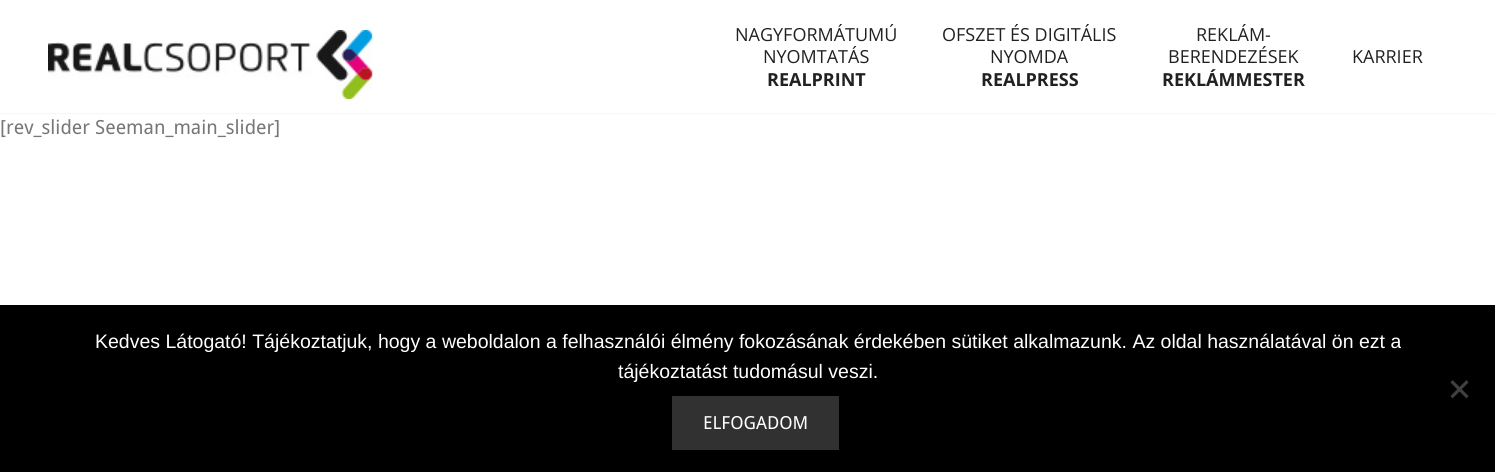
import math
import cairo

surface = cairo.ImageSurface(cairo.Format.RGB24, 1495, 472)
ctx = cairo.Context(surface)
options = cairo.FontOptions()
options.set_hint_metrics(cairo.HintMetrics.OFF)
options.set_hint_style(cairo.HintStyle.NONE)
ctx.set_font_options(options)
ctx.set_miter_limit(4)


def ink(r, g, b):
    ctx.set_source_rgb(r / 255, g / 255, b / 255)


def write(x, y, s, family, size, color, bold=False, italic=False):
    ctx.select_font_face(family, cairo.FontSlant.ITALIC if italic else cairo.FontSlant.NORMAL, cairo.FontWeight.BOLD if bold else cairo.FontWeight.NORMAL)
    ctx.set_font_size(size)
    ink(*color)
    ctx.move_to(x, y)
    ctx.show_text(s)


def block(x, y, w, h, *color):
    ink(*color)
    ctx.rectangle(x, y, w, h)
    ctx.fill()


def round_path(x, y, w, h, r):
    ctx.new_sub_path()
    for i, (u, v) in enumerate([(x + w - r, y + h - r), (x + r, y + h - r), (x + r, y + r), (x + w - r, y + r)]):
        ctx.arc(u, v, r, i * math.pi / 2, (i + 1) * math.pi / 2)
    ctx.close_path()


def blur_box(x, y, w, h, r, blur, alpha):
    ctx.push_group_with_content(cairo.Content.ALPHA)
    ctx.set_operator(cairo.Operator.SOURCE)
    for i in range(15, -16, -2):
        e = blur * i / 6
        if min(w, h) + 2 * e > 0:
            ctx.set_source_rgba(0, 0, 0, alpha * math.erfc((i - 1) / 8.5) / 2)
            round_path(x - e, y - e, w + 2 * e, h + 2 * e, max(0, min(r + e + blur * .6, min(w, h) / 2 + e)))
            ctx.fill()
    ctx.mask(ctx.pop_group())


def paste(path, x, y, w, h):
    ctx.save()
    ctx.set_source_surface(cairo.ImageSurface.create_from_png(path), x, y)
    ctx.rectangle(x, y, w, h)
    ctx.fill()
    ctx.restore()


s1 = dict(family="Open Sans", size=18, color=(33, 33, 33))
s2 = dict(family="Open Sans", size=18, color=(33, 33, 33), bold=True)
s3 = dict(family="Droid Sans", size=19.5, color=(119, 119, 119))
s4 = dict(family="Liberation Sans", size=19.5, color=(255, 255, 255))
s5 = dict(family="Droid Sans", size=18, color=(255, 255, 255))

ink(255, 255, 255)
ctx.paint()
ink(0, 0, 0)
blur_box(0, 0, 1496, 113, 0, 1, 0.1)
block(0, 0, 1495, 113, 255, 255, 255)
paste("pic1.png", 48, 30, 325, 69)
write(735, 41, "NAGYFORMÁTUMÚ", **s1)
write(763, 63, "NYOMTATÁS", **s1)
write(767, 86, "REALPRINT", **s2)
write(942, 41, "OFSZET ÉS DIGITÁLIS", **s1)
write(990, 63, "NYOMDA", **s1)
write(981, 86, "REALPRESS", **s2)
write(1196, 41, "REKLÁM-", **s1)
write(1168, 63, "BERENDEZÉSEK", **s1)
write(1162, 86, "REKLÁMMESTER", **s2)
write(1352, 63, "KARRIER", **s1)
write(0, 134, "[rev_slider Seeman_main_slider]", **s3)
block(0, 305, 1495, 167, 0, 0, 0)
write(95, 348, "Kedves Látogató! Tájékoztatjuk, hogy a weboldalon a felhasználói élmény fokozásának érdekében sütiket alkalmazunk. Az oldal használatával ön ezt a", **s4)
write(618, 378, "tájékoztatást tudomásul veszi.", **s4)
ink(64, 64, 64)
ctx.new_path()
ctx.move_to(1466.5, 380)
ctx.line_to(1468.5, 382.5)
ctx.line_to(1452.5, 398.5)
ctx.line_to(1450.5, 396)
ctx.close_path()
ctx.fill()
ctx.new_path()
ctx.move_to(1450.5, 382.5)
ctx.line_to(1452.5, 380)
ctx.line_to(1468.5, 396)
ctx.line_to(1466.5, 398.5)
ctx.close_path()
ctx.fill()
block(672, 396, 167, 54, 49, 49, 49)
write(703, 429, "ELFOGADOM", **s5)
surface.write_to_png("screenshot.png")
